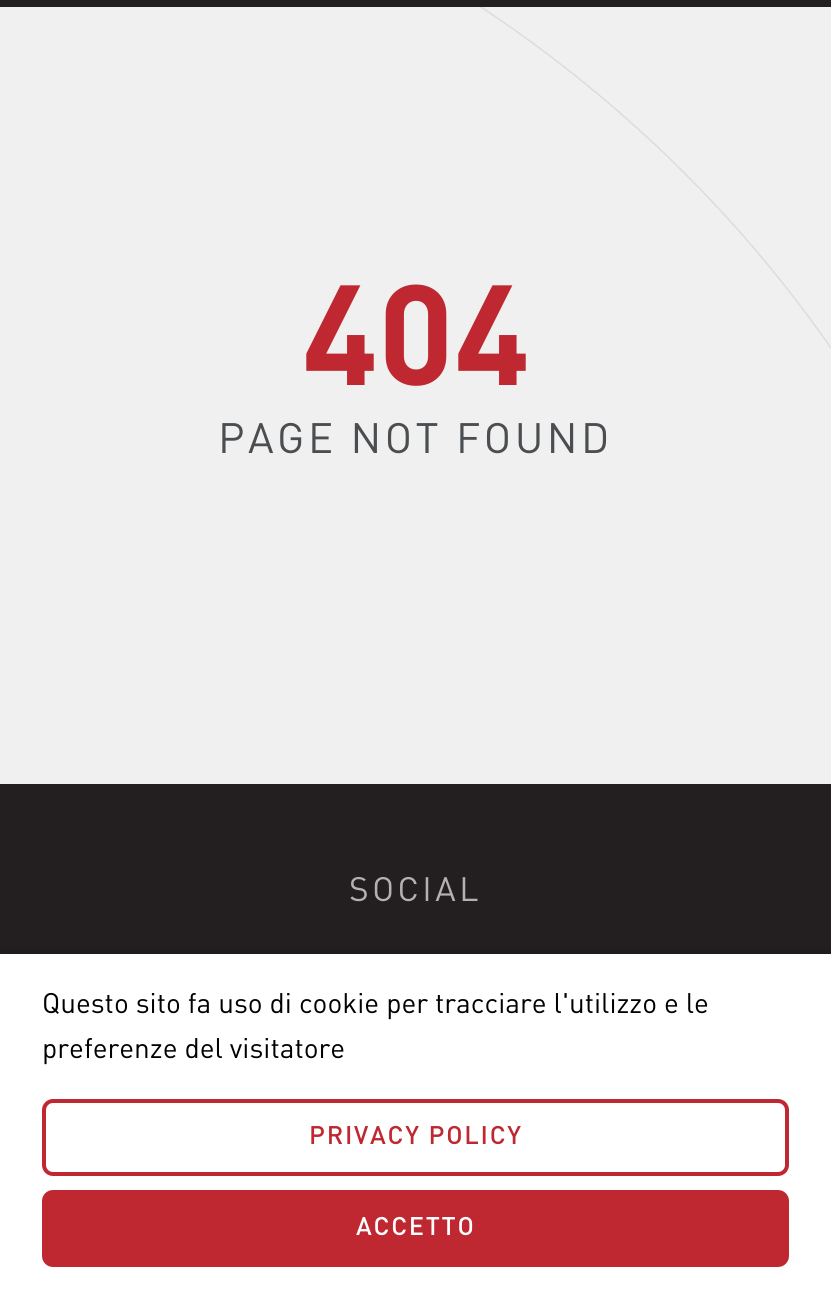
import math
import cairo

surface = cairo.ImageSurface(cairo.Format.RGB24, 831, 1295)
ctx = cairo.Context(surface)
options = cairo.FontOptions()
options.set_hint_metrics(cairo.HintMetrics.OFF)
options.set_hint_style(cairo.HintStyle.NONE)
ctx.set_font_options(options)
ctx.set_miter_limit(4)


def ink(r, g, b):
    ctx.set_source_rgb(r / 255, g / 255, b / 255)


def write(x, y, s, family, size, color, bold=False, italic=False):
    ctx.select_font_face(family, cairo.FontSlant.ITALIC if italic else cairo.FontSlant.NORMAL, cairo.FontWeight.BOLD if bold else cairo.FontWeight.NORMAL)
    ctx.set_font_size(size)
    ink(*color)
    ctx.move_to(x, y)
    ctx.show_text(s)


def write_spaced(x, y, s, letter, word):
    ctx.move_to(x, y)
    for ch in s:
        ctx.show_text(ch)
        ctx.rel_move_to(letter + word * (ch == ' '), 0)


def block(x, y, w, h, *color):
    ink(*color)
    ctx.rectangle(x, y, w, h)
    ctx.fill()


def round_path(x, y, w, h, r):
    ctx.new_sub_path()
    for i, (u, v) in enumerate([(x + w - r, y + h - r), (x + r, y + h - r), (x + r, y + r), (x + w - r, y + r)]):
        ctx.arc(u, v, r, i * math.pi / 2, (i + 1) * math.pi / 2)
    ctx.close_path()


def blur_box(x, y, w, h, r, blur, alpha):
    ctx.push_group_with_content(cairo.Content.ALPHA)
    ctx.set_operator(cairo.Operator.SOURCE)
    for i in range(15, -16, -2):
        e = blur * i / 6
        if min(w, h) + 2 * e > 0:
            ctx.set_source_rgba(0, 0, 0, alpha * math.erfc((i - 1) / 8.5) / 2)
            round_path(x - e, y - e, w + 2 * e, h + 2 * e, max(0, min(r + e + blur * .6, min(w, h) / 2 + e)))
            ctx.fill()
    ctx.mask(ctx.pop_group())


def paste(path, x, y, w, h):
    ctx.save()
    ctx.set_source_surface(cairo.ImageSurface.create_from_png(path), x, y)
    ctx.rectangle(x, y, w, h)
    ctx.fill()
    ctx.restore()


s1 = dict(family="DIN", size=140, color=(191, 40, 49), bold=True)
s2 = dict(family="DIN", size=28, color=(0, 0, 0))

ink(240, 240, 240)
ctx.paint()
paste("pic1.png", 480, 7, 351, 342)
block(0, 0, 831, 7, 35, 31, 32)
write(302, 385, "404", **s1)
ctx.select_font_face("DIN")
ctx.set_font_size(42)
ink(74, 78, 81)
write_spaced(218, 453, "PAGE NOT FOUND", 3.5, 0)
block(0, 784, 831, 170, 35, 31, 32)
ctx.set_font_size(33.5)
ink(179, 177, 178)
write_spaced(349, 901, "SOCIAL", 3.5, 0)
ink(0, 0, 0)
blur_box(0, 950, 831, 342, 0, 3.5, 0.1)
block(0, 954, 831, 341, 255, 255, 255)
write(42, 1013, "Questo sito fa uso di cookie per tracciare l'utilizzo e le", **s2)
write(42, 1058, "preferenze del visitatore", **s2)
round_path(44, 1101, 743, 73, 9)
ink(191, 40, 49)
ctx.set_line_width(4)
ctx.stroke()
ctx.select_font_face("DIN Medium")
ctx.set_font_size(25.25)
write_spaced(309, 1144, "PRIVACY POLICY", 1.75, 0)
round_path(44, 1192, 743, 73, 9)
ctx.fill_preserve()
ctx.stroke()
ink(255, 255, 255)
write_spaced(356, 1235, "ACCETTO", 1.75, 0)
surface.write_to_png("screenshot.png")
